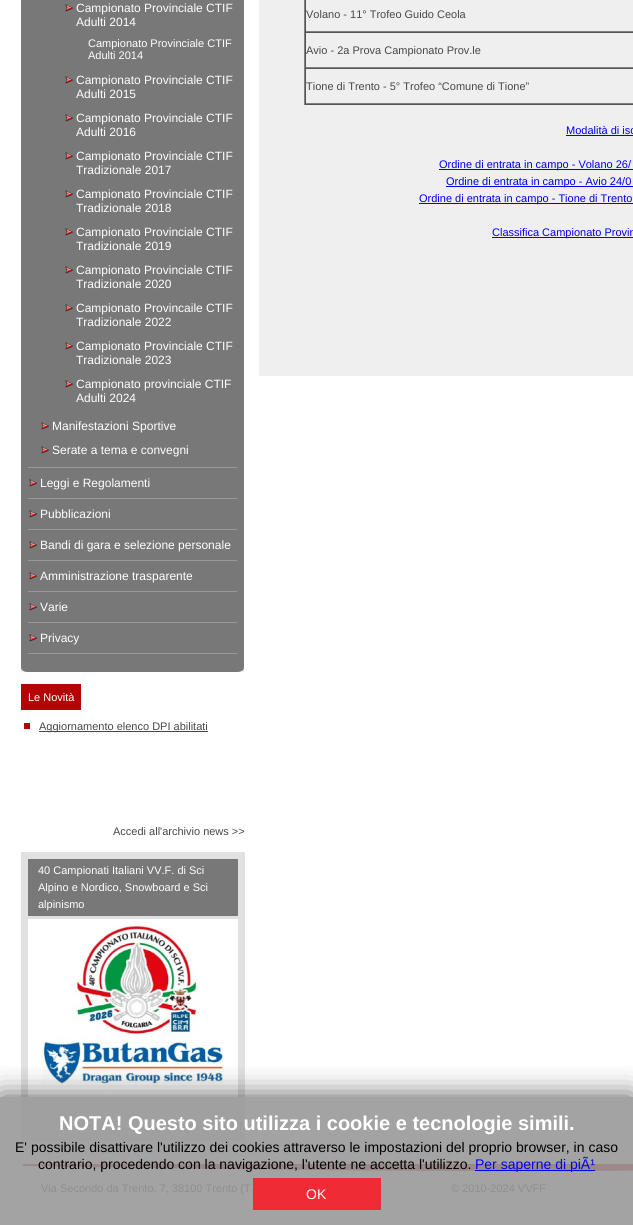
import math
import cairo

surface = cairo.ImageSurface(cairo.Format.RGB24, 633, 1225)
ctx = cairo.Context(surface)
options = cairo.FontOptions()
options.set_hint_metrics(cairo.HintMetrics.OFF)
options.set_hint_style(cairo.HintStyle.NONE)
ctx.set_font_options(options)
ctx.set_miter_limit(4)


def ink(r, g, b):
    ctx.set_source_rgb(r / 255, g / 255, b / 255)


def write(x, y, s, family, size, color, bold=False, italic=False):
    ctx.select_font_face(family, cairo.FontSlant.ITALIC if italic else cairo.FontSlant.NORMAL, cairo.FontWeight.BOLD if bold else cairo.FontWeight.NORMAL)
    ctx.set_font_size(size)
    ink(*color)
    ctx.move_to(x, y)
    ctx.show_text(s)


def block(x, y, w, h, *color):
    ink(*color)
    ctx.rectangle(x, y, w, h)
    ctx.fill()


def round_path(x, y, w, h, r):
    ctx.new_sub_path()
    for i, (u, v) in enumerate([(x + w - r, y + h - r), (x + r, y + h - r), (x + r, y + r), (x + w - r, y + r)]):
        ctx.arc(u, v, r, i * math.pi / 2, (i + 1) * math.pi / 2)
    ctx.close_path()


def blur_box(x, y, w, h, r, blur, alpha):
    ctx.push_group_with_content(cairo.Content.ALPHA)
    ctx.set_operator(cairo.Operator.SOURCE)
    for i in range(15, -16, -2):
        e = blur * i / 6
        if min(w, h) + 2 * e > 0:
            ctx.set_source_rgba(0, 0, 0, alpha * math.erfc((i - 1) / 8.5) / 2)
            round_path(x - e, y - e, w + 2 * e, h + 2 * e, max(0, min(r + e + blur * .6, min(w, h) / 2 + e)))
            ctx.fill()
    ctx.mask(ctx.pop_group())


def paste(path, x, y, w, h):
    ctx.save()
    ctx.set_source_surface(cairo.ImageSurface.create_from_png(path), x, y)
    ctx.rectangle(x, y, w, h)
    ctx.fill()
    ctx.restore()


s1 = dict(family="Liberation Sans", size=12, color=(255, 255, 255))
s2 = dict(family="Liberation Sans", size=11, color=(255, 255, 255))
s3 = dict(family="Liberation Sans", size=11, color=(71, 71, 71))
s4 = dict(family="Liberation Sans", size=11, color=(0, 0, 238))
s5 = dict(family="Liberation Sans", size=20, color=(255, 255, 255), bold=True)
s6 = dict(family="Liberation Sans", size=14, color=(0, 0, 0))
s7 = dict(family="Liberation Sans", size=14, color=(0, 0, 238))
s8 = dict(family="Liberation Sans", size=14, color=(255, 255, 255))
s9 = dict(family="Liberation Sans", size=11, color=(143, 143, 143))

ink(255, 255, 255)
ctx.paint()
block(0, 1097, 633, 128, 163, 163, 163)
block(21, 0, 223, 668, 120, 120, 120)
block(28, 467, 209, 1, 153, 153, 153)
paste("pic1.png", 65, 4, 8, 8)
write(76, 12, "Campionato Provinciale CTIF", **s1)
write(76, 26, "Adulti 2014", **s1)
write(88, 47, "Campionato Provinciale CTIF", **s2)
write(88, 59, "Adulti 2014", **s2)
paste("pic1.png", 65, 76, 8, 8)
write(76, 84, "Campionato Provinciale CTIF", **s1)
write(76, 98, "Adulti 2015", **s1)
paste("pic1.png", 65, 114, 8, 8)
write(76, 122, "Campionato Provinciale CTIF", **s1)
write(76, 136, "Adulti 2016", **s1)
paste("pic1.png", 65, 152, 8, 8)
write(76, 160, "Campionato Provinciale CTIF", **s1)
write(76, 174, "Tradizionale 2017", **s1)
paste("pic1.png", 65, 190, 8, 8)
write(76, 198, "Campionato Provinciale CTIF", **s1)
write(76, 212, "Tradizionale 2018", **s1)
paste("pic1.png", 65, 228, 8, 8)
write(76, 236, "Campionato Provinciale CTIF", **s1)
write(76, 250, "Tradizionale 2019", **s1)
paste("pic1.png", 65, 266, 8, 8)
write(76, 274, "Campionato Provinciale CTIF", **s1)
write(76, 288, "Tradizionale 2020", **s1)
paste("pic1.png", 65, 304, 8, 8)
write(76, 312, "Campionato Provincaile CTIF", **s1)
write(76, 326, "Tradizionale 2022", **s1)
paste("pic1.png", 65, 342, 8, 8)
write(76, 350, "Campionato Provinciale CTIF", **s1)
write(76, 364, "Tradizionale 2023", **s1)
paste("pic1.png", 65, 380, 8, 8)
write(76, 388, "Campionato provinciale CTIF", **s1)
write(76, 402, "Adulti 2024", **s1)
paste("pic1.png", 41, 422, 8, 8)
write(52, 430, "Manifestazioni Sportive", **s1)
paste("pic1.png", 41, 446, 8, 8)
write(52, 454, "Serate a tema e convegni", **s1)
paste("pic1.png", 29, 479, 8, 8)
block(28, 498, 209, 1, 153, 153, 153)
write(40, 487, "Leggi e Regolamenti", **s1)
paste("pic1.png", 29, 510, 8, 8)
block(28, 529, 209, 1, 153, 153, 153)
write(40, 518, "Pubblicazioni", **s1)
paste("pic1.png", 29, 541, 8, 8)
block(28, 560, 209, 1, 153, 153, 153)
write(40, 549, "Bandi di gara e selezione personale", **s1)
paste("pic1.png", 29, 572, 8, 8)
block(28, 591, 209, 1, 153, 153, 153)
write(40, 580, "Amministrazione trasparente", **s1)
paste("pic1.png", 29, 603, 8, 8)
block(28, 622, 209, 1, 153, 153, 153)
write(40, 611, "Varie", **s1)
paste("pic1.png", 29, 634, 8, 8)
block(28, 653, 209, 1, 153, 153, 153)
write(40, 642, "Privacy", **s1)
paste("pic2.png", 21, 668, 223, 4)
block(21, 684, 60, 26, 181, 4, 5)
write(28, 701, "Le Novità", **s2)
block(24, 723, 6, 6, 181, 4, 5)
block(39, 731, 169, 1, 71, 71, 71)
write(39, 730, "Aggiornamento elenco DPI abilitati", **s3)
write(113, 835, "Accedi all'archivio news >>", **s3)
block(21, 852, 224, 245, 225, 225, 225)
block(21, 1097, 224, 44, 160, 160, 160)
block(28, 859, 210, 57, 120, 120, 120)
write(38, 874, "40 Campionati Italiani VV.F. di Sci", **s2)
write(38, 891, "Alpino e Nordico, Snowboard e Sci", **s2)
write(38, 908, "alpinismo", **s2)
paste("pic3.png", 28, 919, 210, 178)
block(259, 0, 374, 376, 239, 239, 239)
block(304, 104, 329, 1, 85, 85, 85)
block(304, 0, 1, 105, 128, 128, 128)
block(305, 31, 328, 1, 128, 128, 128)
block(305, 0, 1, 32, 85, 85, 85)
write(306, 18, "Volano - 11° Trofeo Guido Ceola", **s3)
block(305, 32, 328, 1, 85, 85, 85)
block(305, 67, 328, 1, 128, 128, 128)
block(305, 32, 1, 36, 85, 85, 85)
write(306, 54, "Avio - 2a Prova Campionato Prov.le", **s3)
block(305, 68, 328, 1, 85, 85, 85)
block(305, 103, 328, 1, 128, 128, 128)
block(305, 68, 1, 36, 85, 85, 85)
write(306, 90, "Tione di Trento - 5° Trofeo “Comune di Tione”", **s3)
write(566, 134, "Modalità di isc", **s4)
block(566, 135, 67, 1, 0, 0, 238)
block(439, 169, 194, 1, 0, 0, 238)
write(439, 168, "Ordine di entrata in campo - Volano 26/", **s4)
block(446, 186, 187, 1, 0, 0, 238)
write(446, 185, "Ordine di entrata in campo - Avio 24/0", **s4)
block(419, 203, 214, 1, 0, 0, 238)
write(419, 202, "Ordine di entrata in campo - Tione di Trento", **s4)
block(492, 237, 141, 1, 0, 0, 238)
write(492, 236, "Classifica Campionato Provin", **s4)
paste("pic4.png", 23, 1164, 610, 7)
ctx.save()
ctx.rectangle(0, 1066, 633, 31)
ctx.clip()
ink(85, 85, 85)
blur_box(0, 1097, 633, 128, 0, 15, 1)
ctx.restore()
write(59, 1130, "NOTA! Questo sito utilizza i cookie e tecnologie simili.", **s5)
write(15, 1152, "E' possibile disattivare l'utilizzo dei cookies attraverso le impostazioni del proprio browser, in caso", **s6)
write(38, 1169, "contrario, procedendo con la navigazione, l'utente ne accetta l'utilizzo.", **s6)
block(475, 1170, 120, 1, 0, 0, 238)
write(475, 1169, "Per saperne di piÃ¹", **s7)
block(253, 1178, 128, 32, 239, 44, 53)
write(306, 1199, "OK", **s8)
write(41, 1192, "Via Secondo da Trento, 7, 38100 Trento (T", **s9)
write(451, 1192, "© 2010-2024 VVFF", **s9)
surface.write_to_png("screenshot.png")
